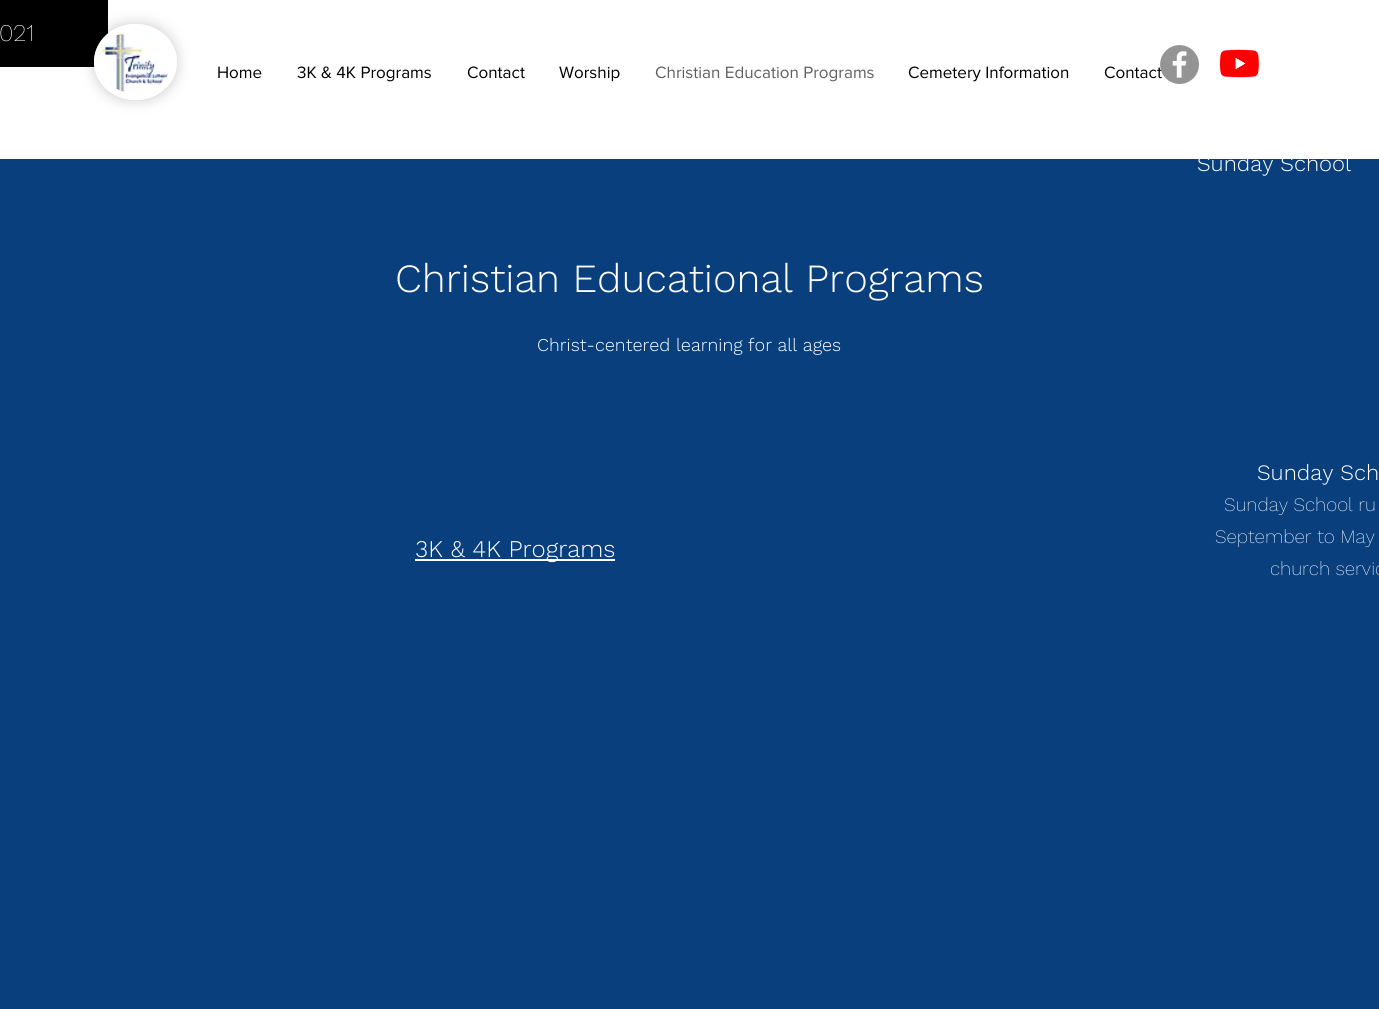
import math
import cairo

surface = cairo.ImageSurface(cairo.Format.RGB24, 1379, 1009)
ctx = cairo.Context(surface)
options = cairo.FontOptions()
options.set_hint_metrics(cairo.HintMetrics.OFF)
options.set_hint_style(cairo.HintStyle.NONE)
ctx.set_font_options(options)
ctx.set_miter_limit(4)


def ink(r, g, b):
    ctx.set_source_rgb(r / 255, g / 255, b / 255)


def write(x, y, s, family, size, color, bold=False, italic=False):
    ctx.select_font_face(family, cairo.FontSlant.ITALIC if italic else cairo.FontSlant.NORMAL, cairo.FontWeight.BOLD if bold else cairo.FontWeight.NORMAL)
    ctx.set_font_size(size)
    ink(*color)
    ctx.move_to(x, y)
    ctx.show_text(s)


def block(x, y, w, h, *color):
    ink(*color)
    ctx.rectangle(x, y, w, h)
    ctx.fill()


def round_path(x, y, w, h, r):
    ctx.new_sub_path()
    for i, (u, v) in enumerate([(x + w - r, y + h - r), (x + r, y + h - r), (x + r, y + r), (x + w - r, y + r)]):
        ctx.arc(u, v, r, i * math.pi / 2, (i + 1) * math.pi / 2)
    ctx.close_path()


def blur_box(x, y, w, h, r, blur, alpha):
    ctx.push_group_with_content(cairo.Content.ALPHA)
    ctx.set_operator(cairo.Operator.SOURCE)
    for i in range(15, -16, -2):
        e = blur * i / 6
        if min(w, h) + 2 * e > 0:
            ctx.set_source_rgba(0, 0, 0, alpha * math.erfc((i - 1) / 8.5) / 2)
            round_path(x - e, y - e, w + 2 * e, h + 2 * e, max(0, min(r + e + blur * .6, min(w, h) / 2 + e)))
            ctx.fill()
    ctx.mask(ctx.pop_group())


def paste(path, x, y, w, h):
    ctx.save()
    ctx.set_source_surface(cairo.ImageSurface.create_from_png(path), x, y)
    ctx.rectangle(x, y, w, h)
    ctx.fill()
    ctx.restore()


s1 = dict(family="Work Sans ExtraLight", size=24, color=(255, 255, 255))
s2 = dict(family="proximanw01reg", size=17, color=(0, 0, 0))
s3 = dict(family="proximanw01reg", size=17, color=(96, 96, 96))
s4 = dict(family="Work Sans Light", size=22, color=(255, 255, 255))
s5 = dict(family="Work Sans Light", size=24, color=(255, 255, 255))
s6 = dict(family="Work Sans Light", size=40, color=(255, 255, 255))
s7 = dict(family="Work Sans Light", size=18, color=(255, 255, 255))
s8 = dict(family="Work Sans ExtraLight", size=19, color=(255, 255, 255))

ink(255, 255, 255)
ctx.paint()
block(0, 0, 108, 67, 0, 0, 0)
write(-1, 41, "021", **s1)
ink(0, 0, 0)
blur_box(94, 24, 83, 76, 38, 7, 0.2)
ink(255, 255, 255)
ctx.new_path()
ctx.move_to(135.5, 24)
ctx.curve_to(158.5, 24, 177, 41, 177, 62)
ctx.curve_to(177, 83, 158.5, 100, 135.5, 100)
ctx.curve_to(112.5, 100, 94, 83, 94, 62)
ctx.curve_to(94, 41, 112.5, 24, 135.5, 24)
ctx.close_path()
ctx.fill()
ctx.new_path()
ctx.move_to(135.5, 27)
ctx.curve_to(157, 27, 174, 42.5, 174, 62)
ctx.curve_to(174, 81.5, 157, 97, 135.5, 97)
ctx.curve_to(114, 97, 97, 81.5, 97, 62)
ctx.curve_to(97, 42.5, 114, 27, 135.5, 27)
ctx.close_path()
ctx.set_line_width(6)
ctx.stroke()
paste("pic1.png", 102, 32, 66, 61)
write(217, 78, "Home", **s2)
write(297, 78, "3K & 4K Programs", **s2)
write(467, 78, "Contact", **s2)
write(559, 78, "Worship", **s2)
write(655, 78, "Christian Education Programs", **s3)
write(908, 78, "Cemetery Information", **s2)
write(1104, 78, "Contact", **s2)
paste("pic2.png", 1160, 45, 39, 39)
paste("pic3.png", 1220, 49, 39, 29)
block(0, 159, 1379, 850, 9, 63, 124)
write(1197, 171, "Sunday School", **s4)
block(415, 559, 200, 2, 255, 255, 255)
write(415, 557, "3K & 4K Programs", **s5)
write(395, 292, "Christian Educational Programs", **s6)
write(537, 351, "Christ-centered learning for all ages", **s7)
write(1257, 480, "Sunday Sch", **s4)
write(1224, 511, "Sunday School ru", **s8)
write(1215, 543, "September to May", **s8)
write(1270, 575, "church servic", **s8)
surface.write_to_png("screenshot.png")
